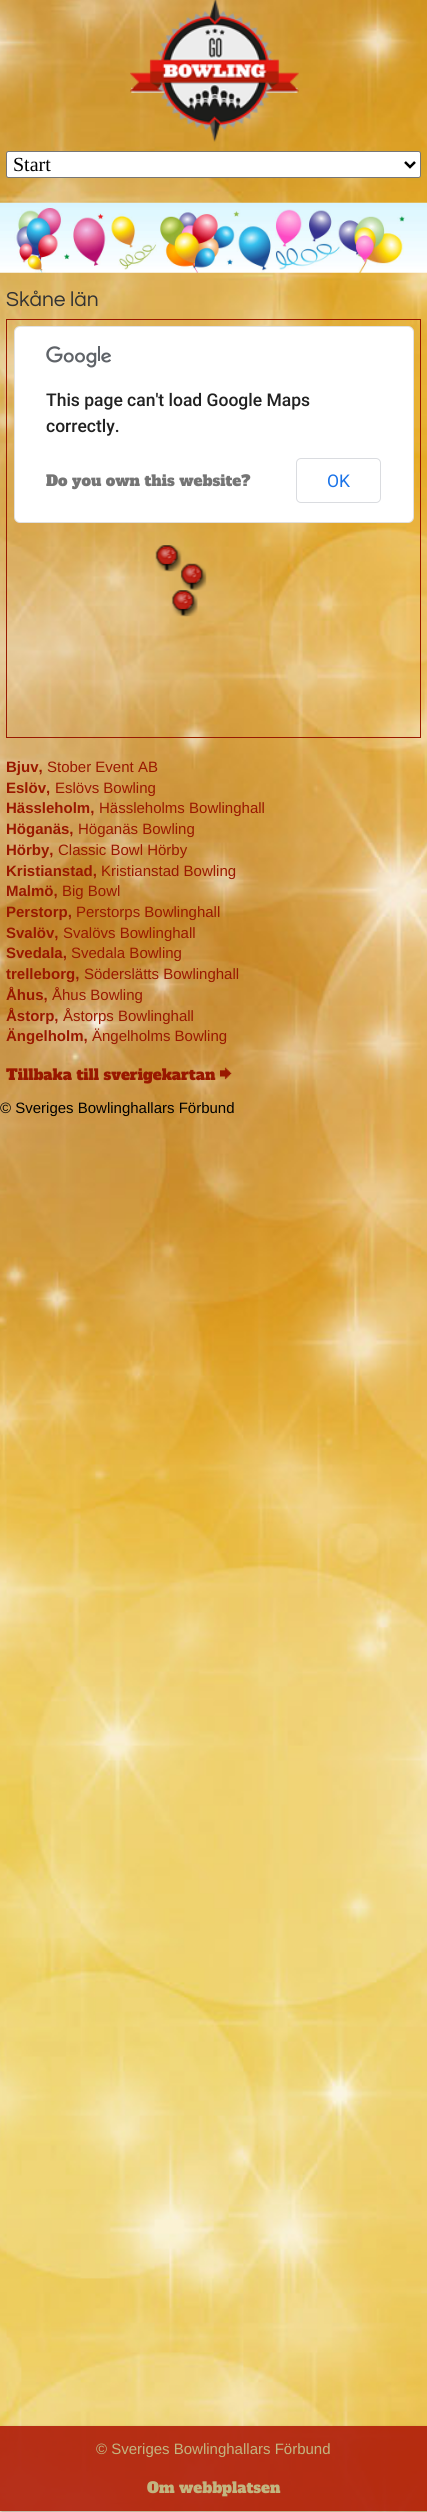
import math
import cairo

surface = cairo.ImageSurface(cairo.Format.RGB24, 427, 2512)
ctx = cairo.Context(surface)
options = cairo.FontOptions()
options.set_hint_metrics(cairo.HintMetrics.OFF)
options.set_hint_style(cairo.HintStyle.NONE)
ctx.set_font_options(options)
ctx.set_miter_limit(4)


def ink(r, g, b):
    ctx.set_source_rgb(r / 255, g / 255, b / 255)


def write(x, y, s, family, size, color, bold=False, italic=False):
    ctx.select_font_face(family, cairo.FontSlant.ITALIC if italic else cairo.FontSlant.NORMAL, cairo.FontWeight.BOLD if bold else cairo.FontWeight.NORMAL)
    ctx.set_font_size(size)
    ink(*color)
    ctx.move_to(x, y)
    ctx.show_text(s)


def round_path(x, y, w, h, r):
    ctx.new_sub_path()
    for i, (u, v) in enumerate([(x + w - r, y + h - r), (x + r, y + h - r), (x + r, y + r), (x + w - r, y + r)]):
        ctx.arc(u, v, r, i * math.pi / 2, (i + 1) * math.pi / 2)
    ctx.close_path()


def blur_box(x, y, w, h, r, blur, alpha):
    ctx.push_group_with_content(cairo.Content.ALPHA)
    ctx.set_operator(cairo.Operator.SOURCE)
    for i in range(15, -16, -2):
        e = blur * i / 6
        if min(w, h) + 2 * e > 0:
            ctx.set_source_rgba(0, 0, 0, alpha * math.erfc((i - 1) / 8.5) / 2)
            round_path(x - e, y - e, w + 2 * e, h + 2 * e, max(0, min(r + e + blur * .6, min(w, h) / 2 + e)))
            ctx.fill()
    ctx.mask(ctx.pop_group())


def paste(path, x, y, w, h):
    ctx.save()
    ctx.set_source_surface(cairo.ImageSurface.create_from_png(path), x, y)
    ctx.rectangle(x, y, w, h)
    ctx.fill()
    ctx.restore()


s1 = dict(family="Liberation Serif", size=20, color=(0, 0, 0))
s2 = dict(family="Questrial", size=21, color=(51, 51, 51))
s3 = dict(family="Roboto Medium", size=17.5, color=(33, 33, 33))
s4 = dict(family="Alfa Slab One", size=15, color=(117, 117, 117))
s5 = dict(family="Roboto", size=17.5, color=(26, 115, 232))
s6 = dict(family="Liberation Sans", size=15, color=(153, 24, 0), bold=True)
s7 = dict(family="Liberation Sans", size=15, color=(153, 24, 0))
s8 = dict(family="Alfa Slab One", size=15, color=(153, 24, 0))
s9 = dict(family="Liberation Sans", size=15, color=(0, 0, 0))
s10 = dict(family="Liberation Sans", size=15, color=(194, 181, 128))
s11 = dict(family="Alfa Slab One", size=15, color=(194, 181, 128))

ink(255, 255, 255)
ctx.paint()
paste("pic1.png", 0, 0, 427, 2512)
paste("pic2.png", 130, 0, 169, 142)
ink(255, 255, 255)
round_path(6.5, 151.5, 414, 26, 2)
ctx.fill_preserve()
ink(118, 118, 118)
ctx.set_line_width(1)
ctx.stroke()
ctx.new_path()
ctx.move_to(405, 162)
ctx.line_to(410, 167)
ctx.line_to(415, 162)
ink(0, 0, 0)
ctx.set_line_width(2.5)
ctx.stroke()
write(13, 171, "Start", **s1)
paste("pic3.png", 0, 202, 427, 71)
write(6, 306, "Skåne län", **s2)
ctx.rectangle(6.5, 319.5, 414, 418)
ink(153, 24, 0)
ctx.set_line_width(1)
ctx.stroke()
ink(255, 255, 255)
round_path(14, 326, 400, 197, 6)
ctx.fill()
round_path(14.5, 326.5, 399, 196, 5.5)
ctx.set_source_rgba(0, 0, 0, 0.12)
ctx.stroke()
paste("pic4.png", 46, 346, 65, 22)
write(46, 406, "This page can't load Google Maps", **s3)
write(46, 432, "correctly.", **s3)
write(46, 486, "Do you own this website?", **s4)
round_path(296.5, 458.5, 84, 44, 4.5)
ink(218, 220, 224)
ctx.stroke()
write(327, 487, "OK", **s5)
paste("pic5.png", 155, 545, 27, 27)
paste("pic6.png", 180, 563, 27, 28)
paste("pic7.png", 171, 590, 27, 27)
write(6, 772, "Bjuv,", **s6)
write(47, 772, "Stober Event AB", **s7)
write(6, 793, "Eslöv,", **s6)
write(55, 793, "Eslövs Bowling", **s7)
write(6, 813, "Hässleholm,", **s6)
write(99, 813, "Hässleholms Bowlinghall", **s7)
write(6, 834, "Höganäs,", **s6)
write(78, 834, "Höganäs Bowling", **s7)
write(6, 855, "Hörby,", **s6)
write(58, 855, "Classic Bowl Hörby", **s7)
write(6, 876, "Kristianstad,", **s6)
write(101, 876, "Kristianstad Bowling", **s7)
write(6, 896, "Malmö,", **s6)
write(62, 896, "Big Bowl", **s7)
write(6, 917, "Perstorp,", **s6)
write(76, 917, "Perstorps Bowlinghall", **s7)
write(6, 938, "Svalöv,", **s6)
write(63, 938, "Svalövs Bowlinghall", **s7)
write(6, 958, "Svedala,", **s6)
write(71, 958, "Svedala Bowling", **s7)
write(6, 979, "trelleborg,", **s6)
write(84, 979, "Söderslätts Bowlinghall", **s7)
write(6, 1000, "Åhus,", **s6)
write(52, 1000, "Åhus Bowling", **s7)
write(6, 1021, "Åstorp,", **s6)
write(63, 1021, "Åstorps Bowlinghall", **s7)
write(6, 1041, "Ängelholm,", **s6)
write(92, 1041, "Ängelholms Bowling", **s7)
write(6, 1080, "Tillbaka till sverigekartan", **s8)
paste("pic8.png", 220, 1067, 12, 13)
write(0, 1113, "© Sveriges Bowlinghallars Förbund", **s9)
ctx.save()
ctx.set_fill_rule(cairo.FillRule.EVEN_ODD)
ctx.new_path()
ctx.move_to(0, 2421)
ctx.line_to(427, 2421)
ctx.line_to(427, 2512)
ctx.line_to(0, 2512)
ctx.close_path()
ctx.move_to(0, 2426)
ctx.line_to(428, 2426)
ctx.line_to(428, 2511)
ctx.line_to(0, 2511)
ctx.close_path()
ctx.clip()
ink(0, 0, 0)
blur_box(1, 2428, 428, 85, 0, 2, 0.3)
ctx.restore()
ctx.set_source_rgba(0.69, 0.11, 0.039, 0.9)
ctx.rectangle(0, 2426, 427, 85)
ctx.fill()
write(96, 2454, "© Sveriges Bowlinghallars Förbund", **s10)
write(147, 2493, "Om webbplatsen", **s11)
surface.write_to_png("screenshot.png")
